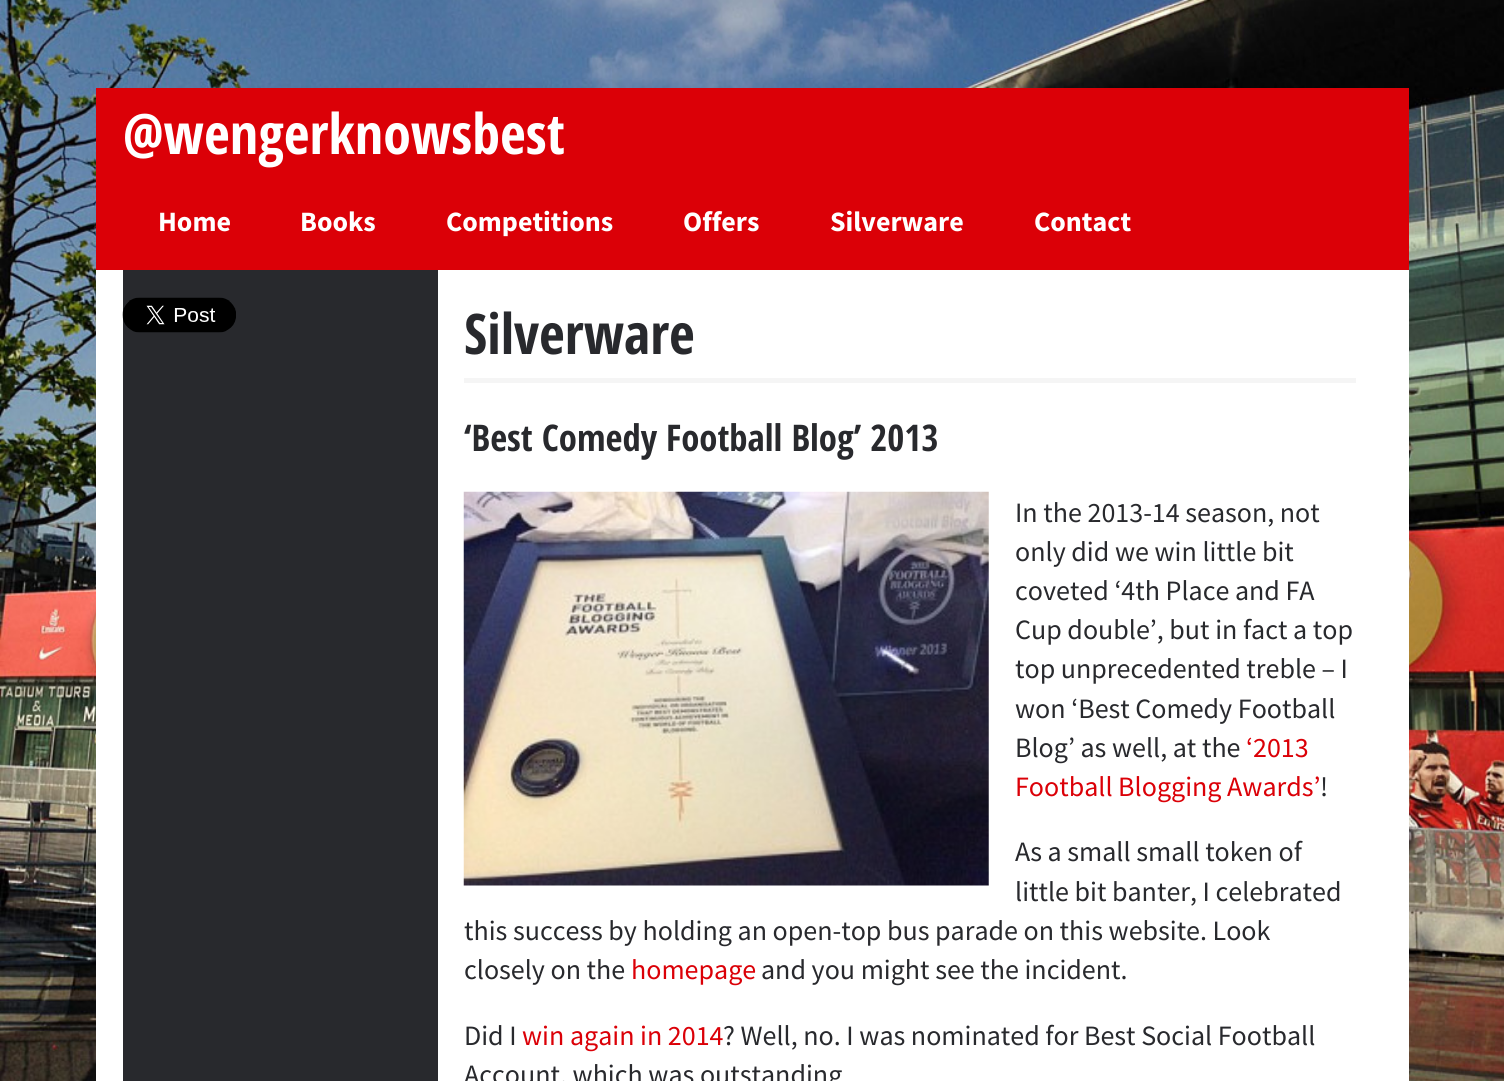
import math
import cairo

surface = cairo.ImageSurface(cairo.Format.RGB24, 1504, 1081)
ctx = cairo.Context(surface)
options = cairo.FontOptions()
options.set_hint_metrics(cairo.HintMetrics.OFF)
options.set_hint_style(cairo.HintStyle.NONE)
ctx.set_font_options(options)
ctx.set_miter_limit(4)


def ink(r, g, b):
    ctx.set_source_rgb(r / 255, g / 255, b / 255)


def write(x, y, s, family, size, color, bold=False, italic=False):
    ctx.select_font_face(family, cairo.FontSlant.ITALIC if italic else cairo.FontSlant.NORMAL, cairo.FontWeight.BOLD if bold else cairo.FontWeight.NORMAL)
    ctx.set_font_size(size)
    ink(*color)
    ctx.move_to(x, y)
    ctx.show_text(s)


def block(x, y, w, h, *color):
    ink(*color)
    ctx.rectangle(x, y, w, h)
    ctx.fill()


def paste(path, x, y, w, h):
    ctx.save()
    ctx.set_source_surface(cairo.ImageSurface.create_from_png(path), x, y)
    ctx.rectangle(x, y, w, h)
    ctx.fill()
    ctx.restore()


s1 = dict(family="Open Sans Condensed", size=56, color=(255, 255, 255), bold=True)
s2 = dict(family="Source Sans Pro", size=28, color=(255, 255, 255), bold=True)
s3 = dict(family="Open Sans Condensed", size=56, color=(40, 41, 45), bold=True)
s4 = dict(family="Open Sans Condensed", size=36.75, color=(40, 41, 45), bold=True)
s5 = dict(family="Source Sans Pro", size=28, color=(40, 41, 45))
s6 = dict(family="Source Sans Pro", size=28, color=(219, 0, 7))

ink(255, 255, 255)
ctx.paint()
paste("pic1.png", 0, 0, 1504, 1081)
block(96, 270, 1313, 811, 255, 255, 255)
block(96, 88, 1313, 182, 219, 0, 7)
write(123, 154, "@wengerknowsbest", **s1)
write(158, 231, "Home", **s2)
write(300, 231, "Books", **s2)
write(446, 231, "Competitions", **s2)
write(683, 231, "Offers", **s2)
write(830, 231, "Silverware", **s2)
write(1034, 231, "Contact", **s2)
block(123, 270, 315, 811, 40, 41, 45)
paste("pic2.png", 122, 297, 114, 36)
block(464, 378, 892, 5, 245, 245, 245)
write(464, 354, "Silverware", **s3)
write(464, 451, "‘Best Comedy Football Blog’ 2013", **s4)
paste("pic3.png", 463, 491, 526, 395)
write(1015, 522, "In the 2013-14 season, not", **s5)
write(1015, 561, "only did we win little bit", **s5)
write(1015, 600, "coveted ‘4th Place and FA", **s5)
write(1015, 639, "Cup double’, but in fact a top", **s5)
write(1015, 678, "top unprecedented treble – I", **s5)
write(1015, 718, "won ‘Best Comedy Football", **s5)
write(1015, 757, "Blog’ as well, at the", **s5)
write(1246, 757, "‘2013", **s6)
write(1015, 796, "Football Blogging Awards’", **s6)
write(1320, 796, "!", **s5)
write(1015, 861, "As a small small token of", **s5)
write(1015, 901, "little bit banter, I celebrated", **s5)
write(464, 940, "this success by holding an open-top bus parade on this website. Look", **s5)
write(464, 979, "closely on the", **s5)
write(631, 979, "homepage", **s6)
write(761, 979, "and you might see the incident.", **s5)
write(464, 1045, "Did I", **s5)
write(522, 1045, "win again in 2014", **s6)
write(723, 1045, "? Well, no. I was nominated for Best Social Football", **s5)
write(464, 1084, "Account, which was outstanding", **s5)
surface.write_to_png("screenshot.png")
